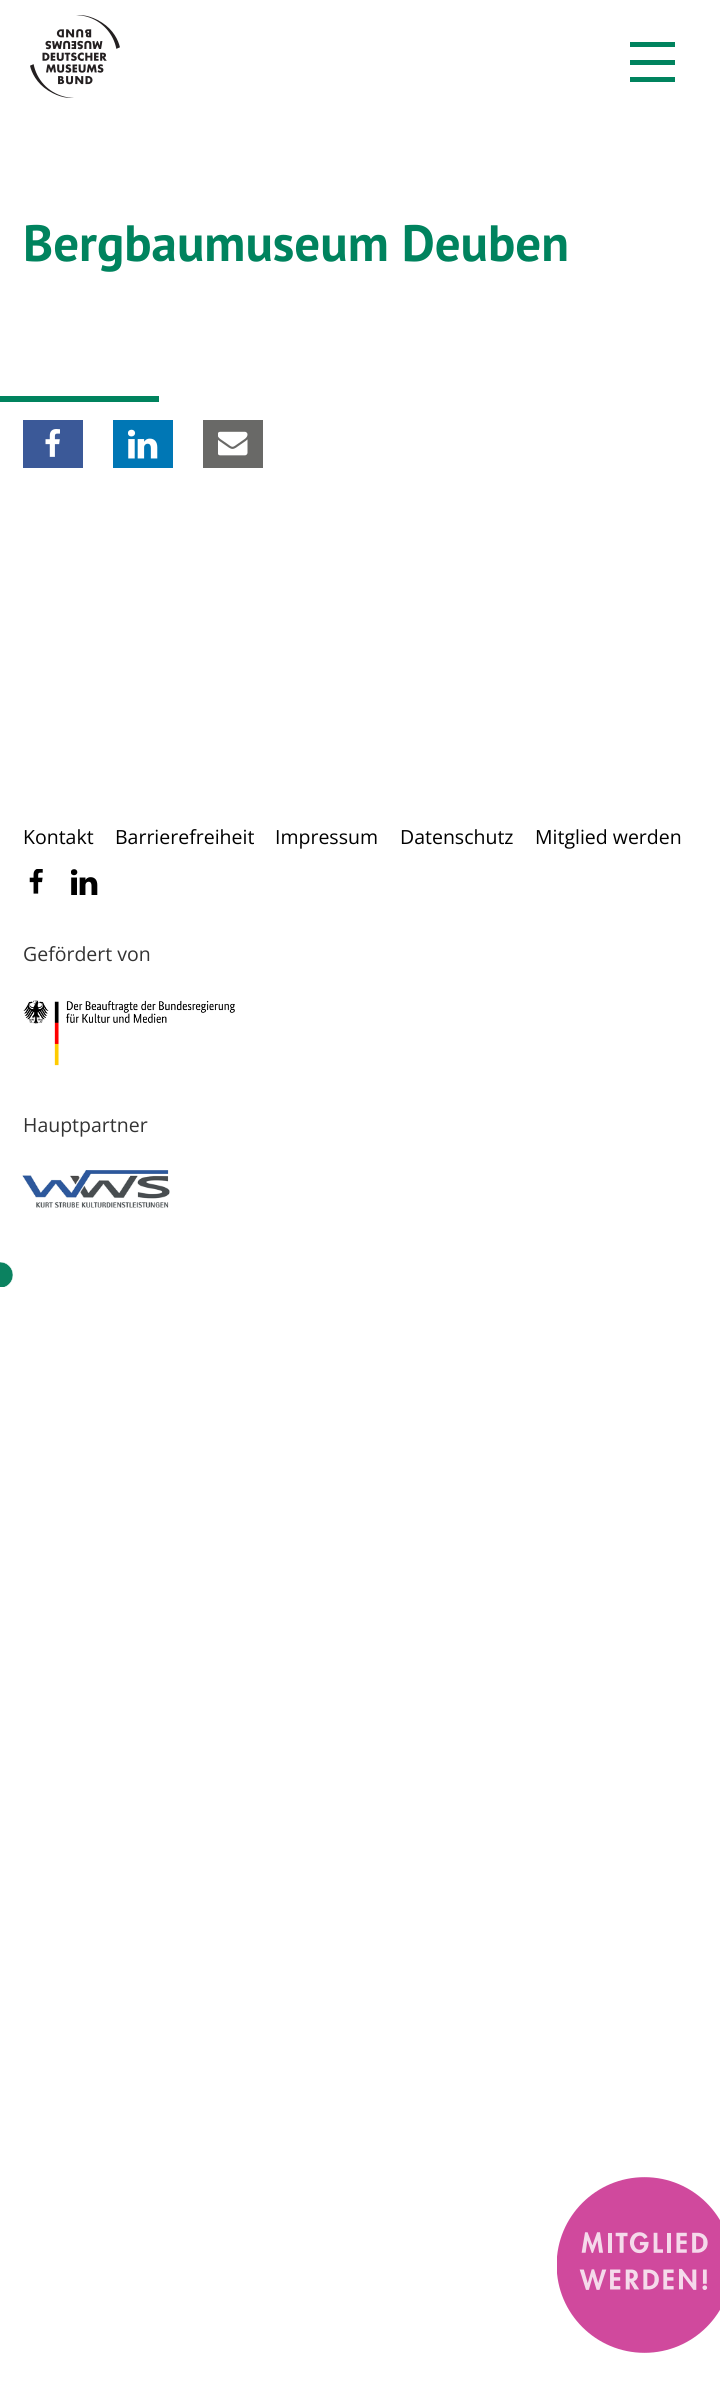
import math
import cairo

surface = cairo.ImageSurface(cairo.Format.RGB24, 720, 2400)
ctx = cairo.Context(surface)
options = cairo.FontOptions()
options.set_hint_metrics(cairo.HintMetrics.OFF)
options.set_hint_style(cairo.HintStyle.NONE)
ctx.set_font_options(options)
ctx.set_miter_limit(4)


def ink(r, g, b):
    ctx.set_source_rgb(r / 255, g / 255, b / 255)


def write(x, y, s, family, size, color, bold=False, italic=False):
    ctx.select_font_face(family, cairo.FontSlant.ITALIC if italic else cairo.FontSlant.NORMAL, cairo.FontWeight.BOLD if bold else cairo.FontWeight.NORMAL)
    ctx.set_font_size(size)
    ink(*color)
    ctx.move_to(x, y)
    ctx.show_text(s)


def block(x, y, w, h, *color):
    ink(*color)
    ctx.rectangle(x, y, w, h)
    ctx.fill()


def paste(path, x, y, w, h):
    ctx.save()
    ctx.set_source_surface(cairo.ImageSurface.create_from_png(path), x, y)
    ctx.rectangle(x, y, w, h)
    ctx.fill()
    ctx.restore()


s1 = dict(family="PT Sans", size=51, color=(0, 131, 94), bold=True)
s2 = dict(family="Open Sans", size=19.5, color=(0, 0, 0))
s3 = dict(family="Open Sans", size=19.5, color=(51, 51, 51))

ink(255, 255, 255)
ctx.paint()
paste("pic1.png", 30, 15, 90, 83)
block(630, 42, 45, 5, 0, 131, 94)
block(630, 77, 45, 5, 0, 131, 94)
block(630, 60, 45, 5, 0, 131, 94)
write(23, 261, "Bergbaumuseum Deuben", **s1)
block(0, 396, 159, 6, 0, 131, 94)
block(23, 420, 60, 48, 59, 89, 152)
paste("pic2.png", 45, 429, 15, 28)
block(113, 420, 60, 48, 0, 119, 181)
paste("pic3.png", 128, 429, 30, 30)
block(203, 420, 60, 48, 105, 105, 103)
paste("pic4.png", 218, 431, 30, 25)
paste("pic5.png", 557, 2177, 163, 176)
write(23, 844, "Kontakt", **s2)
write(115, 844, "Barrierefreiheit", **s2)
write(275, 844, "Impressum", **s2)
write(400, 844, "Datenschutz", **s2)
write(535, 844, "Mitglied werden", **s2)
paste("pic6.png", 29, 869, 14, 25)
paste("pic7.png", 71, 869, 27, 26)
write(23, 961, "Gefördert von", **s3)
paste("pic8.png", 23, 1000, 212, 66)
write(23, 1132, "Hauptpartner", **s3)
paste("pic9.png", 22, 1170, 148, 38)
ctx.save()
ctx.rectangle(0, 1262, 14, 25)
ctx.clip()
ink(11, 130, 96)
ctx.arc(0, 1275, 13, 0, 2 * math.pi)
ctx.fill_preserve()
ink(255, 255, 255)
ctx.set_line_width(0.5)
ctx.stroke()
ctx.restore()
surface.write_to_png("screenshot.png")
